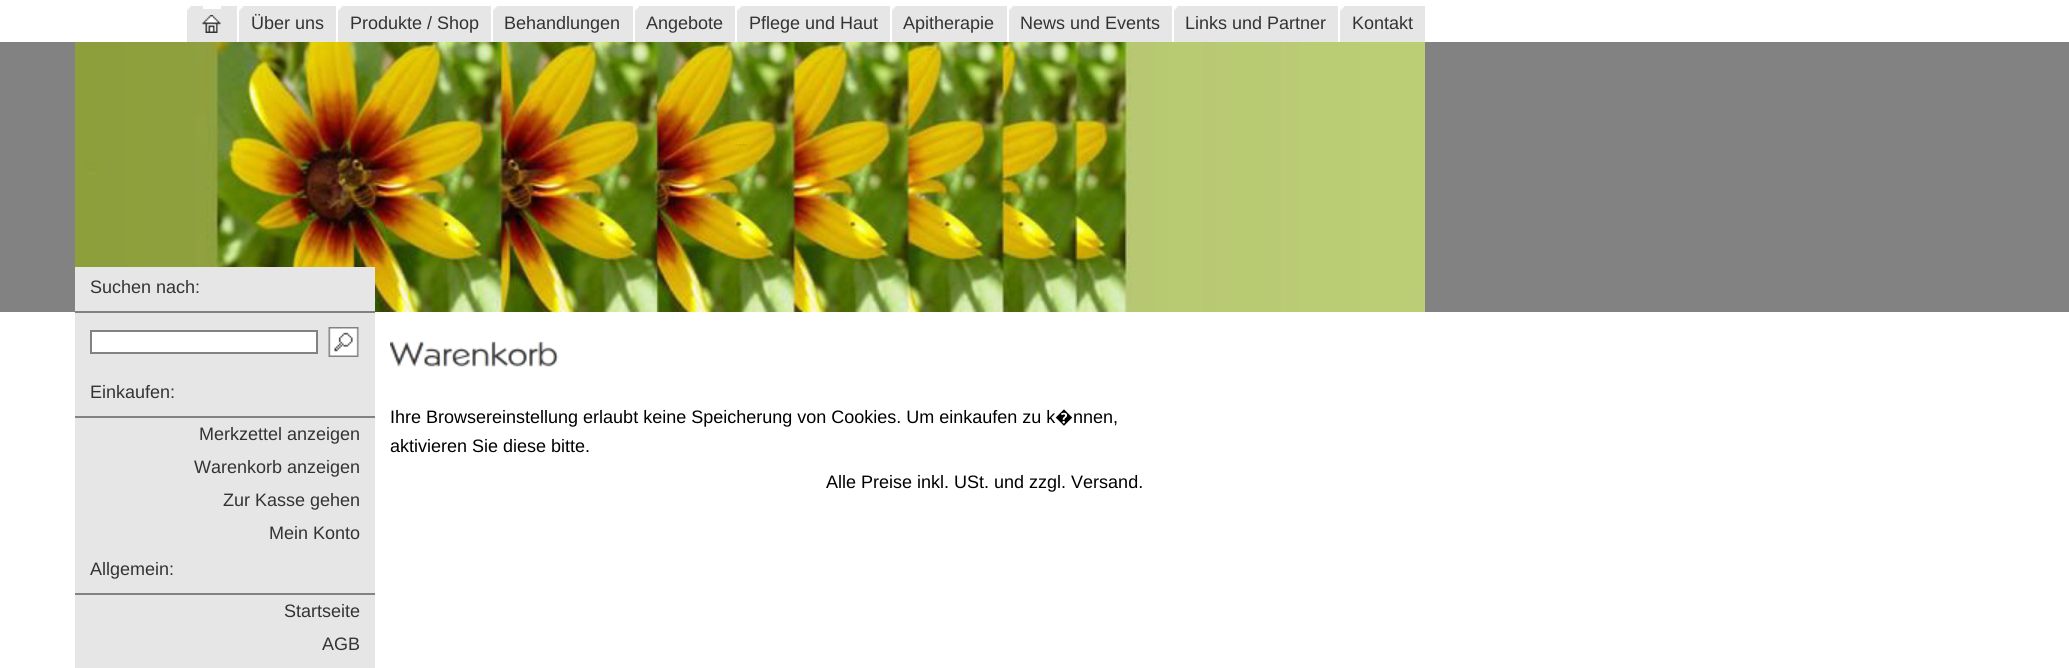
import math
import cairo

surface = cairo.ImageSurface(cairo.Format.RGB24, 2069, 668)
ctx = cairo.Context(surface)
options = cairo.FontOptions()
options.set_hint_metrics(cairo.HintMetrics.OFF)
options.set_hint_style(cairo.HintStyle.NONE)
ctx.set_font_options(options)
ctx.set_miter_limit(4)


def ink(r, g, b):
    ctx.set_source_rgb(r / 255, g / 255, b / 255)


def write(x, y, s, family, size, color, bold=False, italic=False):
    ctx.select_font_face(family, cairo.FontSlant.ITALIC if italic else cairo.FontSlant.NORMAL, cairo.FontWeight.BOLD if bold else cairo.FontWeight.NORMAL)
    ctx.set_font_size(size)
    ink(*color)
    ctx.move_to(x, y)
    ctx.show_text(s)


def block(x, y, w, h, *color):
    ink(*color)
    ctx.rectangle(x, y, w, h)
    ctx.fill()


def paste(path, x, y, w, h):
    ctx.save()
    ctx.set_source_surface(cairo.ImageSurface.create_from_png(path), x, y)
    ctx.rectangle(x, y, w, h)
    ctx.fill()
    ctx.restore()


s1 = dict(family="Liberation Sans", size=18, color=(51, 51, 51))
s2 = dict(family="Liberation Sans", size=18, color=(0, 0, 0))
s3 = dict(family="Noto Sans", size=18, color=(0, 0, 0))

ink(255, 255, 255)
ctx.paint()
block(187, 6, 16, 36, 230, 230, 230)
paste("pic1.png", 187, 6, 4, 5)
block(221, 6, 16, 36, 230, 230, 230)
block(239, 6, 97, 36, 230, 230, 230)
paste("pic2.png", 239, 6, 4, 5)
block(338, 6, 153, 36, 230, 230, 230)
paste("pic2.png", 338, 6, 4, 5)
block(493, 6, 140, 36, 230, 230, 230)
paste("pic3.png", 493, 6, 4, 5)
block(635, 6, 100, 36, 230, 230, 230)
paste("pic4.png", 635, 6, 4, 5)
block(737, 6, 153, 36, 230, 230, 230)
paste("pic4.png", 737, 6, 4, 5)
block(892, 6, 115, 36, 230, 230, 230)
paste("pic1.png", 892, 6, 4, 5)
block(1009, 6, 163, 36, 230, 230, 230)
paste("pic1.png", 1009, 6, 4, 5)
block(1174, 6, 164, 36, 230, 230, 230)
paste("pic3.png", 1174, 6, 4, 5)
block(1340, 6, 85, 36, 230, 230, 230)
paste("pic4.png", 1340, 6, 4, 5)
block(203, 9, 18, 33, 230, 230, 230)
write(251, 29, "Über uns", **s1)
paste("pic5.png", 202, 15, 19, 18)
write(350, 29, "Produkte / Shop", **s1)
write(504, 29, "Behandlungen", **s1)
write(646, 29, "Angebote", **s1)
write(749, 29, "Pflege und Haut", **s1)
write(903, 29, "Apitherapie", **s1)
write(1020, 29, "News und Events", **s1)
write(1185, 29, "Links und Partner", **s1)
write(1352, 29, "Kontakt", **s1)
block(0, 42, 2069, 270, 130, 130, 130)
paste("pic6.png", 75, 42, 1350, 270)
block(75, 267, 300, 401, 230, 230, 230)
block(75, 311, 300, 2, 130, 130, 130)
write(90, 293, "Suchen nach:", **s1)
ink(255, 255, 255)
ctx.rectangle(91, 331, 226, 22)
ctx.fill_preserve()
ink(130, 130, 130)
ctx.stroke()
paste("pic7.png", 328, 327, 31, 30)
block(75, 416, 300, 2, 130, 130, 130)
write(90, 398, "Einkaufen:", **s1)
write(199, 440, "Merkzettel anzeigen", **s1)
write(194, 473, "Warenkorb anzeigen", **s1)
write(223, 506, "Zur Kasse gehen", **s1)
write(269, 539, "Mein Konto", **s1)
block(75, 593, 300, 2, 130, 130, 130)
write(90, 575, "Allgemein:", **s1)
write(284, 617, "Startseite", **s1)
write(322, 650, "AGB", **s1)
paste("pic8.png", 390, 341, 169, 26)
write(390, 423, "Ihre Browsereinstellung erlaubt keine Speicherung von Cookies. Um einkaufen zu k", **s2)
write(1055, 423, "�", **s3)
write(1073, 423, "nnen,", **s2)
write(390, 452, "aktivieren Sie diese bitte.", **s2)
write(826, 488, "Alle Preise inkl. USt. und zzgl. Versand.", **s2)
surface.write_to_png("screenshot.png")
